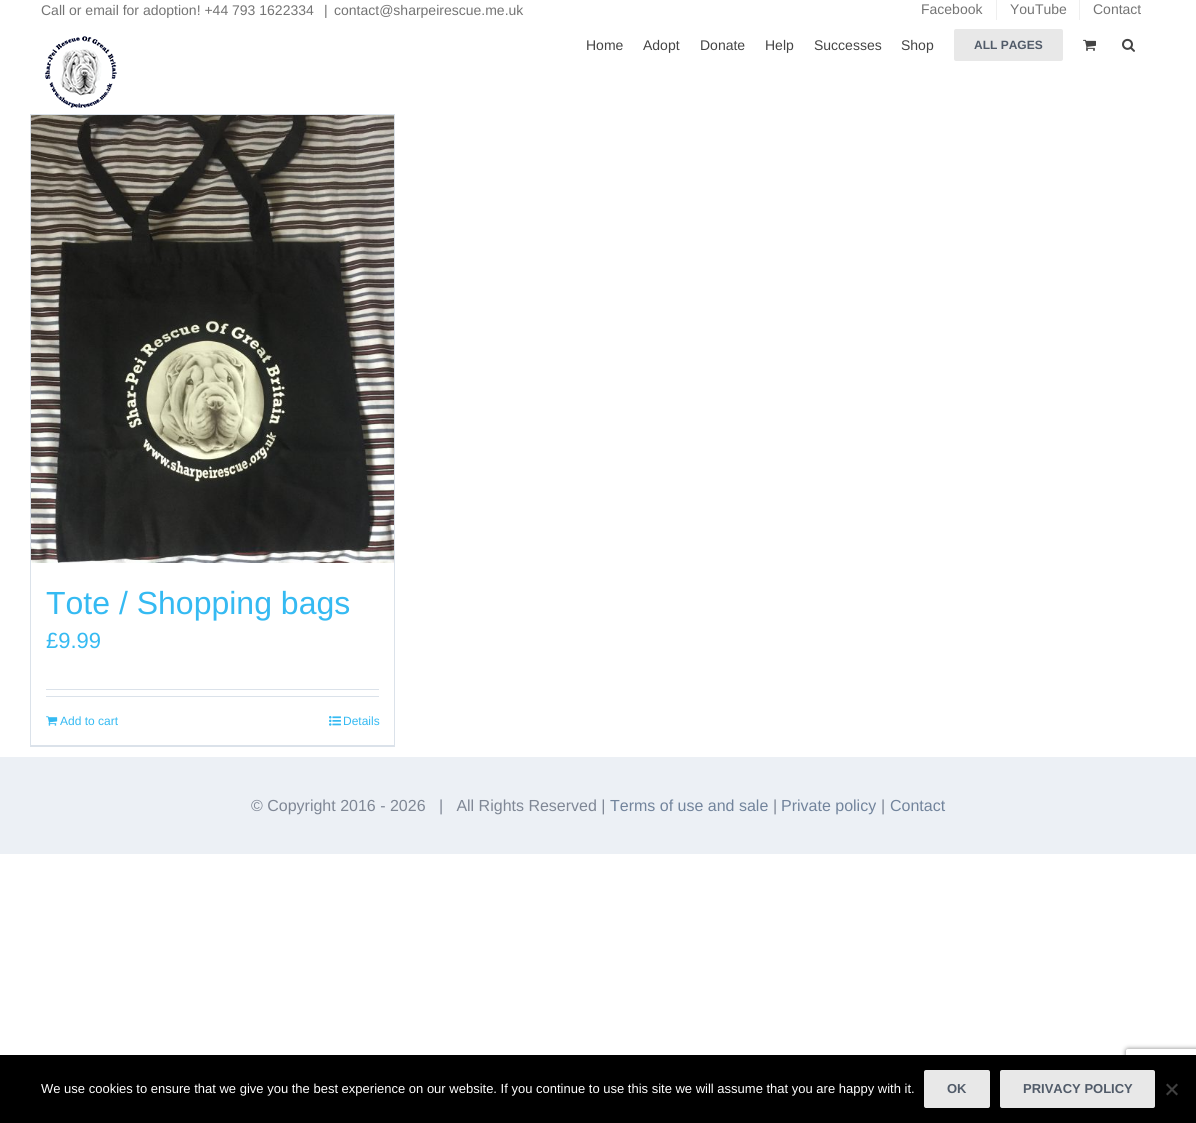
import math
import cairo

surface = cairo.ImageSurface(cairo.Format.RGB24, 1196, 1123)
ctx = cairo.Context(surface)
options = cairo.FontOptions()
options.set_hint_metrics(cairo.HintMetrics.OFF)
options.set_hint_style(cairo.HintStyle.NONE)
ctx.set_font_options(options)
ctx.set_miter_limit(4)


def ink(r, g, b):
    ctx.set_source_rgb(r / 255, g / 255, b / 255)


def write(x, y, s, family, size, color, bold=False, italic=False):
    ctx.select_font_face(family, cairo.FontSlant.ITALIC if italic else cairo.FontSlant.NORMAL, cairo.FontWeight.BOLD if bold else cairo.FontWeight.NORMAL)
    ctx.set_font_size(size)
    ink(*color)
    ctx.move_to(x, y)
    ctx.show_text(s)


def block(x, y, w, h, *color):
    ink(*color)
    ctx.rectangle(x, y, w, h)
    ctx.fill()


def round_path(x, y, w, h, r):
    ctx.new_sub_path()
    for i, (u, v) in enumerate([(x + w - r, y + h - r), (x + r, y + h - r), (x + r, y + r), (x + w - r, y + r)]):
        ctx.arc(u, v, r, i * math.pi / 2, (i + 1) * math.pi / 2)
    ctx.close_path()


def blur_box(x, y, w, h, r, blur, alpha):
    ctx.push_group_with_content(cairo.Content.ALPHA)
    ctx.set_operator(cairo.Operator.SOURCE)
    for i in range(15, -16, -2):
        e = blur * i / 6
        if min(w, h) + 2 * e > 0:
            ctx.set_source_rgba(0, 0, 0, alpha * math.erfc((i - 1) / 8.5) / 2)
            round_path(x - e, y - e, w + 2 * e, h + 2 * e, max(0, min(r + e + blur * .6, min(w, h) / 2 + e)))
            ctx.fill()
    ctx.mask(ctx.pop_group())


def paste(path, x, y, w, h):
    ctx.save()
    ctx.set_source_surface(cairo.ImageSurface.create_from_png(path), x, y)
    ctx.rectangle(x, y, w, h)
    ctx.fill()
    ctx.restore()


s1 = dict(family="Liberation Sans", size=14, color=(116, 116, 116))
s2 = dict(family="Liberation Sans", size=14, color=(68, 68, 68))
s3 = dict(family="Liberation Sans", size=12, color=(81, 91, 105), bold=True)
s4 = dict(family="Liberation Sans", size=32, color=(53, 186, 242))
s5 = dict(family="Liberation Sans", size=22, color=(53, 186, 242))
s6 = dict(family="Liberation Sans", size=12, color=(53, 186, 242))
s7 = dict(family="Liberation Sans", size=16, color=(127, 135, 149))
s8 = dict(family="Liberation Sans", size=16, color=(114, 132, 156))
s9 = dict(family="Liberation Sans", size=13, color=(255, 255, 255))
s10 = dict(family="Liberation Sans", size=13, color=(81, 91, 105), bold=True)

ink(255, 255, 255)
ctx.paint()
write(41, 15, "Call or email for adoption! +44 793 1622334", **s1)
write(324, 15, "|", **s1)
write(334, 15, "contact@sharpeirescue.me.uk", **s1)
write(921, 14, "Facebook", **s1)
block(996, 0, 1, 20, 239, 239, 239)
write(1010, 14, "YouTube", **s1)
block(1079, 0, 1, 20, 239, 239, 239)
write(1093, 14, "Contact", **s1)
paste("pic1.png", 45, 36, 72, 72)
write(586, 50, "Home", **s2)
write(643, 50, "Adopt", **s2)
write(700, 50, "Donate", **s2)
write(765, 50, "Help", **s2)
write(814, 50, "Successes", **s2)
write(901, 50, "Shop", **s2)
ink(232, 232, 232)
round_path(954, 29, 109, 32, 2)
ctx.fill()
write(974, 49, "ALL PAGES", **s3)
paste("pic2.png", 1083, 39, 13, 12)
paste("pic3.png", 1122, 38, 13, 14)
block(30, 114, 365, 1, 219, 226, 234)
block(394, 114, 1, 633, 219, 226, 234)
block(30, 745, 365, 2, 219, 226, 234)
block(30, 114, 1, 633, 219, 226, 234)
paste("pic4.png", 31, 115, 363, 448)
write(46, 614, "Tote / Shopping bags", **s4)
write(46, 648, "£9.99", **s5)
block(46, 689, 333, 1, 219, 226, 234)
block(46, 696, 333, 1, 219, 226, 234)
paste("pic5.png", 46, 716, 12, 10)
write(60, 725, "Add to cart", **s6)
paste("pic6.png", 329, 716, 12, 10)
write(343, 725, "Details", **s6)
block(0, 757, 1196, 97, 236, 240, 245)
write(251, 811, "© Copyright 2016 - 2026   |   All Rights Reserved |", **s7)
write(610, 811, "Terms of use and sale", **s8)
write(773, 811, "|", **s7)
write(781, 811, "Private policy", **s8)
write(881, 811, "|", **s7)
write(890, 811, "Contact", **s8)
ctx.save()
ctx.set_fill_rule(cairo.FillRule.EVEN_ODD)
ctx.new_path()
ctx.move_to(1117, 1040)
ctx.line_to(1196, 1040)
ctx.line_to(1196, 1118)
ctx.line_to(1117, 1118)
ctx.close_path()
ctx.move_to(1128, 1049)
ctx.line_to(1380, 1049)
ctx.curve_to(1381, 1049, 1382, 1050, 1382, 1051)
ctx.line_to(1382, 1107)
ctx.curve_to(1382, 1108, 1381, 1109, 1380, 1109)
ctx.line_to(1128, 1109)
ctx.curve_to(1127, 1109, 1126, 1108, 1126, 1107)
ctx.line_to(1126, 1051)
ctx.curve_to(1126, 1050, 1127, 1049, 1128, 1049)
ctx.close_path()
ctx.clip()
ink(128, 128, 128)
blur_box(1126, 1049, 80, 60, 2, 2.5, 1)
ctx.restore()
block(0, 1055, 1196, 68, 0, 0, 0)
write(41, 1093, "We use cookies to ensure that we give you the best experience on our website. If you continue to use this site we will assume that you are happy with it.", **s9)
ink(232, 232, 232)
round_path(924, 1070, 66, 38, 2)
ctx.fill()
write(947, 1093, "OK", **s10)
ink(232, 232, 232)
round_path(1000, 1070, 155, 38, 2)
ctx.fill()
write(1023, 1093, "PRIVACY POLICY", **s10)
ink(64, 64, 64)
ctx.new_path()
ctx.move_to(1176.5, 1083.5)
ctx.line_to(1178, 1085)
ctx.line_to(1167.5, 1095.5)
ctx.line_to(1166, 1094)
ctx.close_path()
ctx.fill()
ctx.new_path()
ctx.move_to(1166, 1085)
ctx.line_to(1167.5, 1083.5)
ctx.line_to(1178, 1094)
ctx.line_to(1176.5, 1095.5)
ctx.close_path()
ctx.fill()
surface.write_to_png("screenshot.png")
